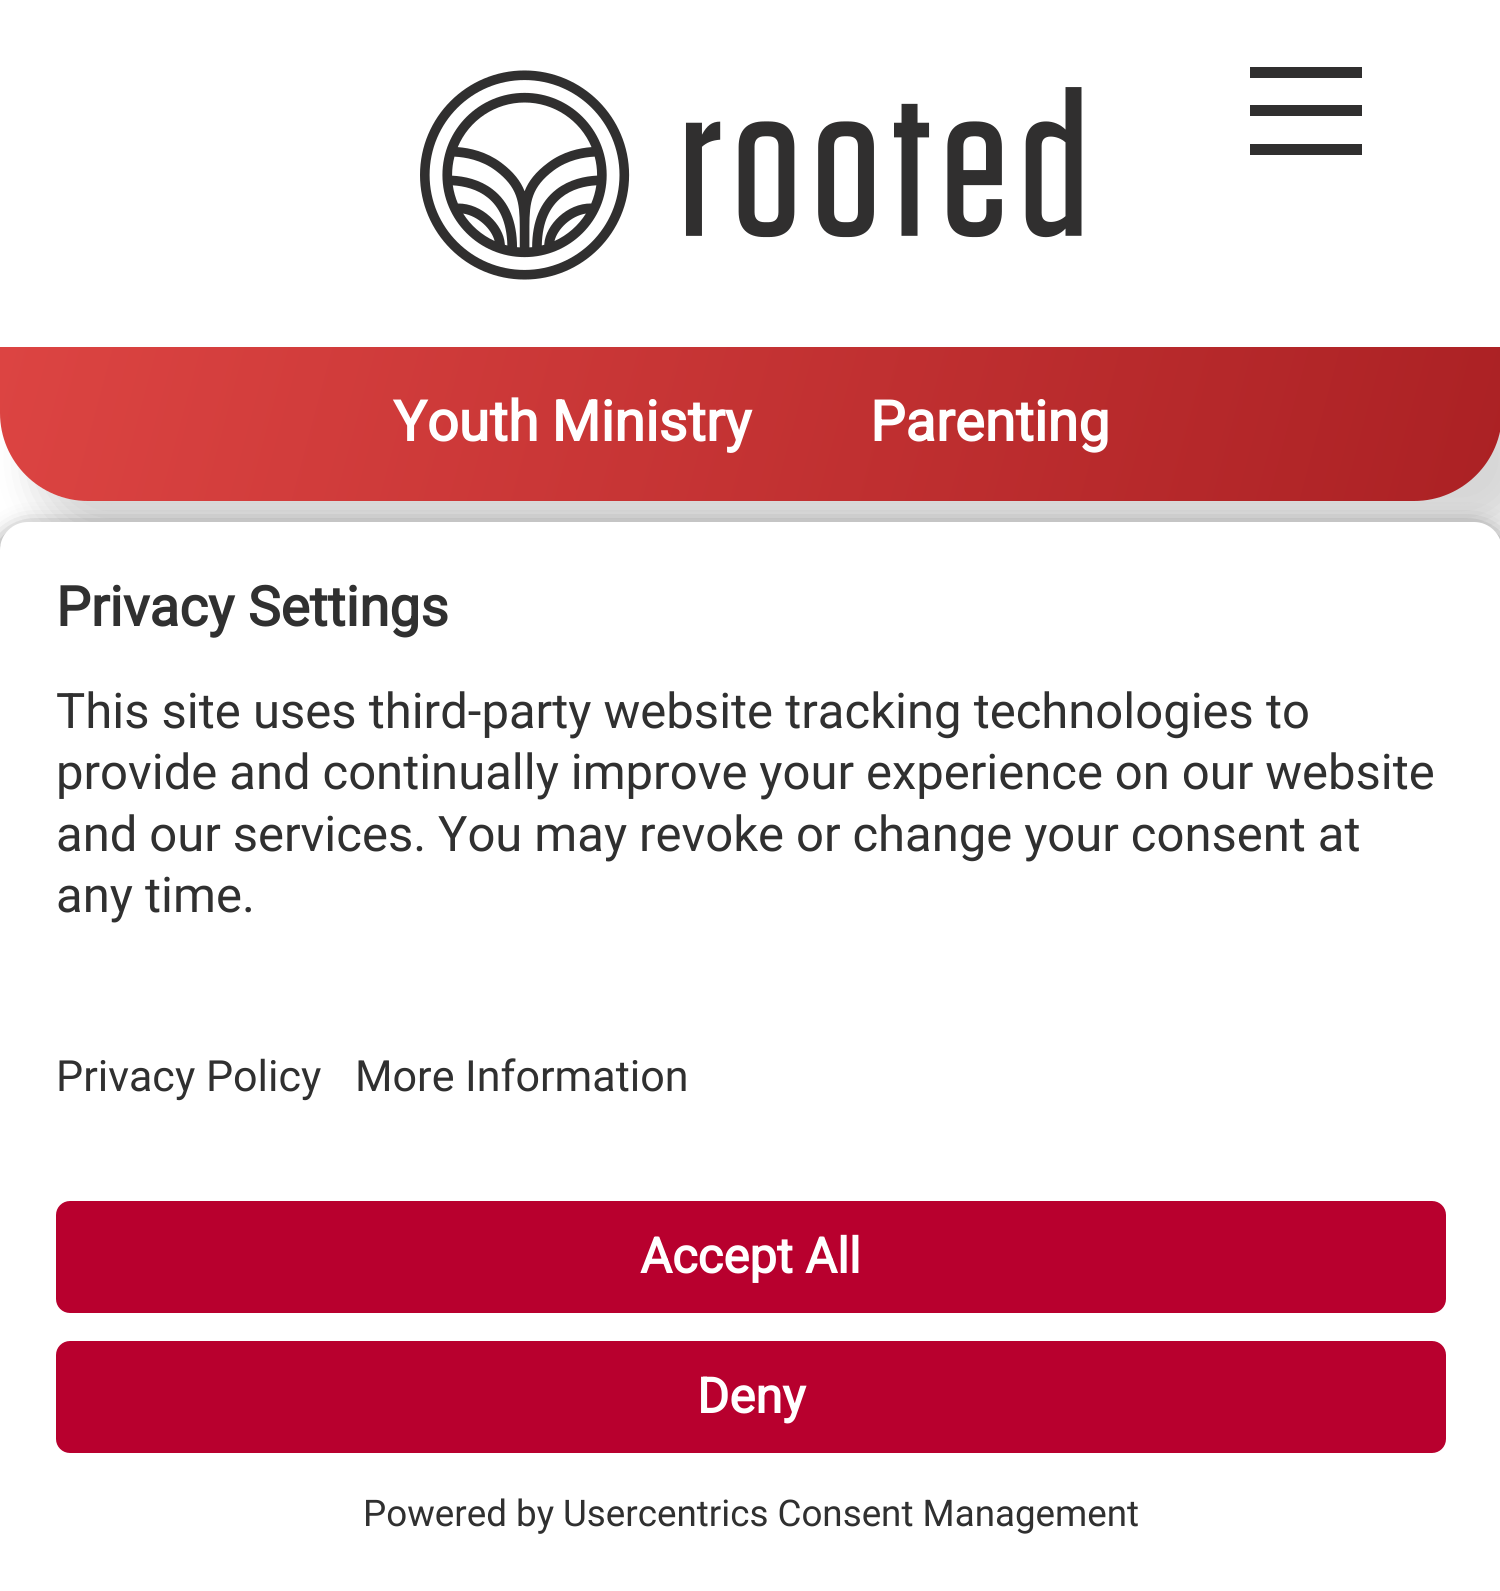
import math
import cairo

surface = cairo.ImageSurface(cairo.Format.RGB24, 1500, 1591)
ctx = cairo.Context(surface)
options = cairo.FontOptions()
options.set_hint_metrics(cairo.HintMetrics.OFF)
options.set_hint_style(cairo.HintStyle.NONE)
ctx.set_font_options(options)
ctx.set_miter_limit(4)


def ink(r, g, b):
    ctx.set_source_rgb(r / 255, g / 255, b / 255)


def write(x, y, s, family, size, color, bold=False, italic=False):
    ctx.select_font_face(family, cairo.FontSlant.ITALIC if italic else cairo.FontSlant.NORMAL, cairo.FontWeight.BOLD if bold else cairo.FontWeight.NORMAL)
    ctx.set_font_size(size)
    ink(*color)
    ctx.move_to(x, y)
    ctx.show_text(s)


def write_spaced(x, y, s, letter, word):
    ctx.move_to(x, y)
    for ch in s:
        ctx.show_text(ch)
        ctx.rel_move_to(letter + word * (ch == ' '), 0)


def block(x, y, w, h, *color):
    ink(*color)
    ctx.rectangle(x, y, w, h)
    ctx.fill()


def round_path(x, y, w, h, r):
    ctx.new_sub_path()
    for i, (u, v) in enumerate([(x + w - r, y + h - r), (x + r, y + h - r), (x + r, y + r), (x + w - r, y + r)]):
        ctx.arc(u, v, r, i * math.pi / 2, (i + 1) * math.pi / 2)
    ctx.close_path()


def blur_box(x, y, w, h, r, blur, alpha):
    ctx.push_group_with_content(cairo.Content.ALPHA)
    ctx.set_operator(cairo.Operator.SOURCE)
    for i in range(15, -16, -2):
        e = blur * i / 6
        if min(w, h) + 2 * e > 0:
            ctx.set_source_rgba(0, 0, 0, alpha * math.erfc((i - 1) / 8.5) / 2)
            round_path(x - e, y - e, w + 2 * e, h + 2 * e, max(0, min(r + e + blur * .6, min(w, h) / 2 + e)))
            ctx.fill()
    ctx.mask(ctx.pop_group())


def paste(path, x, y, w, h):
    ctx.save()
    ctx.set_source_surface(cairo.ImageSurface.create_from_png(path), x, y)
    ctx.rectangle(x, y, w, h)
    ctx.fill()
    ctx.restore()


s1 = dict(family="Roboto", size=56, color=(255, 255, 255), bold=True)
s2 = dict(family="Roboto", size=55, color=(48, 48, 48), bold=True)
s3 = dict(family="Roboto", size=49, color=(48, 48, 48))
s4 = dict(family="Roboto", size=43, color=(48, 48, 48))
s5 = dict(family="Roboto", size=49, color=(255, 255, 255), bold=True)
s6 = dict(family="Roboto", size=36.75, color=(48, 48, 48))

ink(255, 255, 255)
ctx.paint()
paste("pic1.png", 420, 70, 662, 210)
block(1250, 67, 112, 11, 48, 47, 47)
block(1250, 105, 112, 11, 48, 47, 47)
block(1250, 144, 112, 11, 48, 47, 47)
ink(0, 0, 0)
blur_box(35, 382, 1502, 154, 88, 21, 0.16)
gradient = cairo.LinearGradient(1470, 616, 31, 231)
gradient.add_color_stop_rgba(0, 0.671, 0.129, 0.141, 1)
gradient.add_color_stop_rgba(1, 0.863, 0.267, 0.259, 1)
ctx.set_source(gradient)
ctx.new_path()
ctx.move_to(0, 347)
ctx.line_to(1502, 347)
ctx.line_to(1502, 413)
ctx.curve_to(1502, 461.5, 1462.5, 501, 1414, 501)
ctx.line_to(88, 501)
ctx.curve_to(39.5, 501, 0, 461.5, 0, 413)
ctx.close_path()
ctx.fill()
ctx.select_font_face("Roboto", cairo.FontSlant.NORMAL, cairo.FontWeight.BOLD)
ctx.set_font_size(56)
ink(255, 255, 255)
write_spaced(393, 441, "Youth Ministry", 0, -1)
write(870, 441, "Parenting", **s1)
ink(0, 0, 0)
blur_box(0, 532, 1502, 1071, 28, 12, 0.8)
ink(255, 255, 255)
ctx.new_path()
ctx.move_to(28, 522)
ctx.line_to(1474, 522)
ctx.curve_to(1489.5, 522, 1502, 534.5, 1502, 550)
ctx.line_to(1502, 998)
ctx.line_to(0, 998)
ctx.line_to(0, 550)
ctx.curve_to(0, 534.5, 12.5, 522, 28, 522)
ctx.close_path()
ctx.fill()
write(56, 626, "Privacy Settings", **s2)
write(56, 728, "This site uses third-party website tracking technologies to", **s3)
write_spaced(56, 789, "provide and continually improve your experience on our website", 0, -0.25)
write_spaced(56, 851, "and our services. You may revoke or change your consent at", 0, -0.25)
write(56, 912, "any time.", **s3)
block(0, 998, 1500, 593, 255, 255, 255)
write(56, 1091, "Privacy Policy", **s4)
write(355, 1091, "More Information", **s4)
ink(184, 0, 46)
round_path(56, 1201, 1390, 112, 14)
ctx.fill()
write(640, 1273, "Accept All", **s5)
ink(184, 0, 46)
round_path(56, 1341, 1390, 112, 14)
ctx.fill()
write(697, 1413, "Deny", **s5)
write(363, 1526, "Powered by", **s6)
write(563, 1526, "Usercentrics Consent Management", **s6)
surface.write_to_png("screenshot.png")
